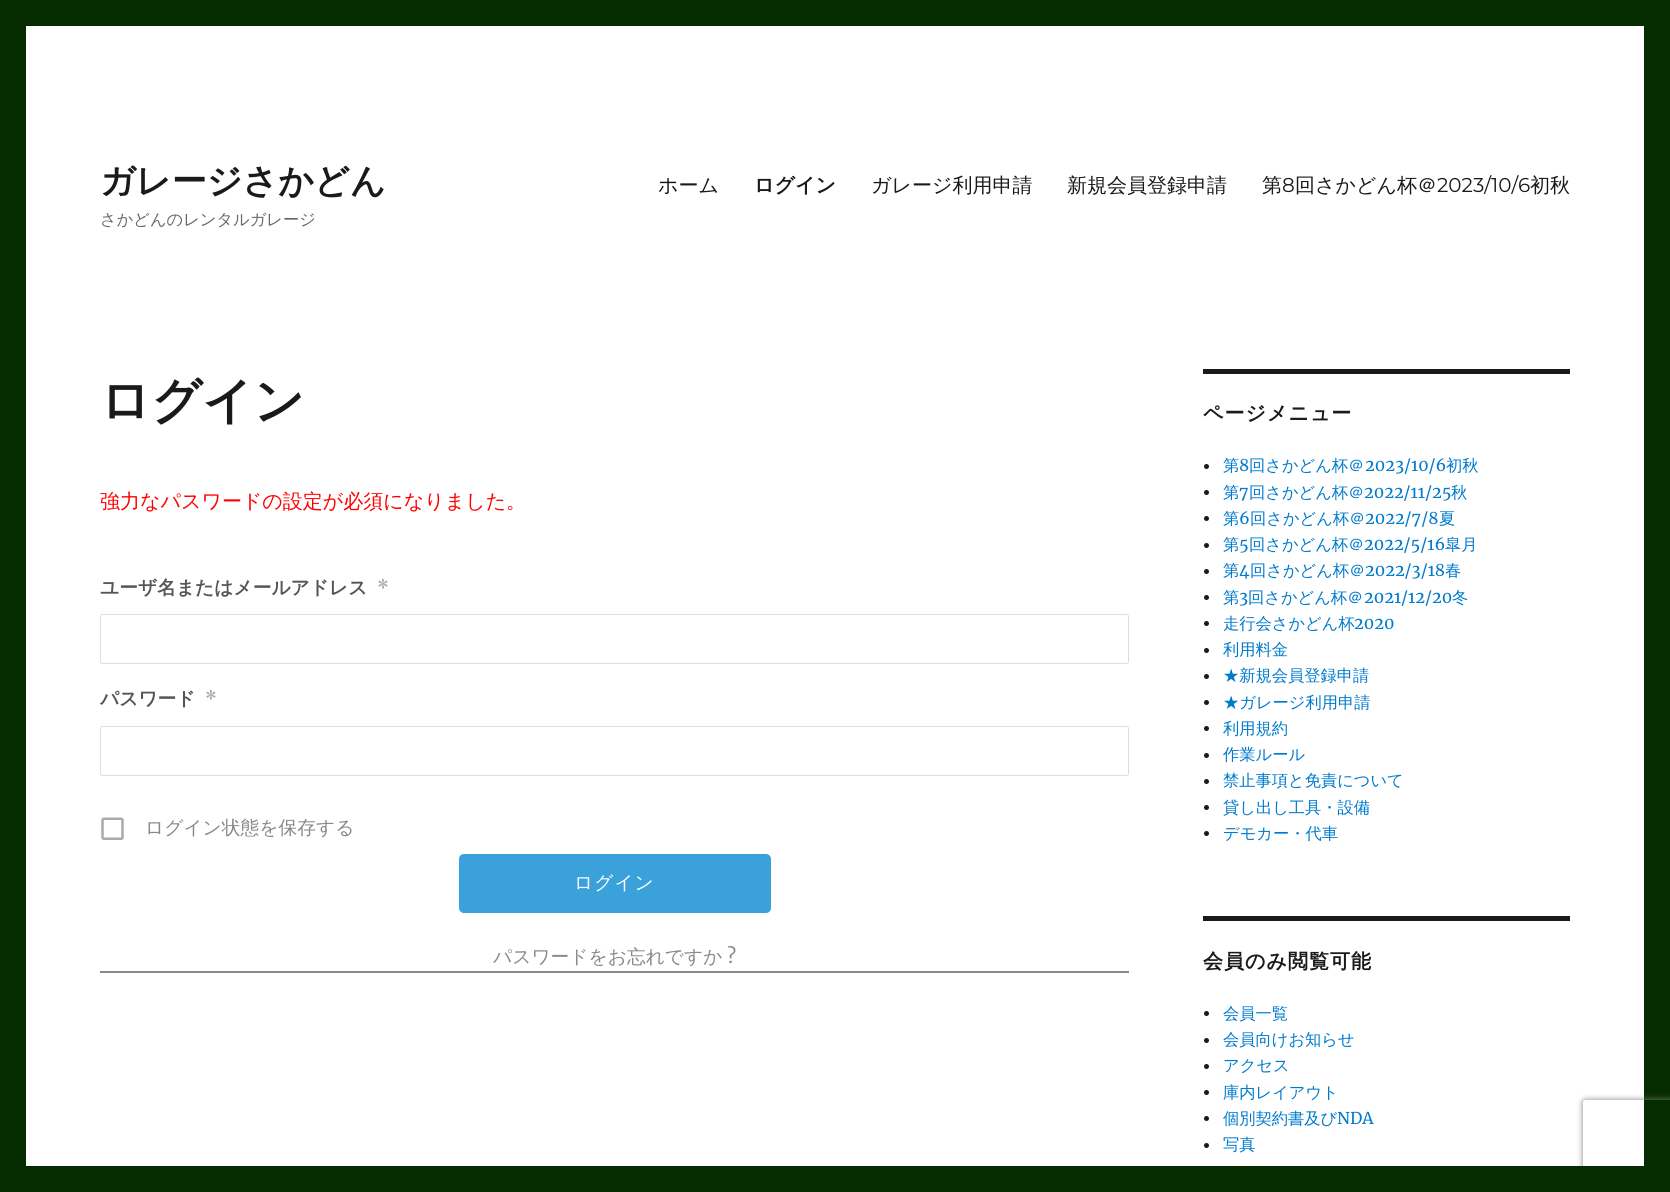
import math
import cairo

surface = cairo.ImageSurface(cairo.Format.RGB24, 1670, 1192)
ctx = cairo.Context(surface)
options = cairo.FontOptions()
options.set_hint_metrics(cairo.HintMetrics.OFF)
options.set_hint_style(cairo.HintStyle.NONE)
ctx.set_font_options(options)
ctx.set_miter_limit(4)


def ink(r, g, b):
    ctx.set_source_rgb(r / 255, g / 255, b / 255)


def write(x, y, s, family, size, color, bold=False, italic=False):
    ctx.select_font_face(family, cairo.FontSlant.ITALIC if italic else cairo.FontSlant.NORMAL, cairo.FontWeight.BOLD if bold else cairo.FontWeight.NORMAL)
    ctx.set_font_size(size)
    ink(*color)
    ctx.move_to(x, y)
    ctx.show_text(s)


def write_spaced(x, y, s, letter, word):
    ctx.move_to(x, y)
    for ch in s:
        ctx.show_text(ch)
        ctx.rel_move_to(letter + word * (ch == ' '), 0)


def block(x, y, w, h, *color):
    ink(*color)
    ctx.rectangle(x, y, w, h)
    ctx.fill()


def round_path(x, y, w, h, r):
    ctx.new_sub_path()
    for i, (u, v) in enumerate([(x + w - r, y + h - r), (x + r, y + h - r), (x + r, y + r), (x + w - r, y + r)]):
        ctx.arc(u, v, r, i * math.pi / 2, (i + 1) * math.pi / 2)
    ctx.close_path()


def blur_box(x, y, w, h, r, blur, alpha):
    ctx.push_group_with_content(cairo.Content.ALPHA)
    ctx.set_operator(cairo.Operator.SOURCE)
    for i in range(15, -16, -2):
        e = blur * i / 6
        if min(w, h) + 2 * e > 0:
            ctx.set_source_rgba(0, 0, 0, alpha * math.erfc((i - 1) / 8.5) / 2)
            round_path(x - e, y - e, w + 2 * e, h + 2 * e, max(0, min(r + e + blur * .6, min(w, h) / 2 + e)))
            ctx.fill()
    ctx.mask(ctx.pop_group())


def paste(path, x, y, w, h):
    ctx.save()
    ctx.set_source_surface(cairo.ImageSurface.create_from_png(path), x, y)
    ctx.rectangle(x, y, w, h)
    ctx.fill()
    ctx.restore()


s1 = dict(family="WenQuanYi Zen Hei", size=35, color=(26, 26, 26), bold=True)
s2 = dict(family="WenQuanYi Zen Hei Medium", size=16.25, color=(104, 104, 104))
s3 = dict(family="WenQuanYi Zen Hei Medium", size=20, color=(26, 26, 26))
s4 = dict(family="WenQuanYi Zen Hei", size=20, color=(26, 26, 26), bold=True)
s5 = dict(family="Montserrat Thin", size=20, color=(26, 26, 26))
s6 = dict(family="WenQuanYi Zen Hei", size=50, color=(26, 26, 26), bold=True)
s7 = dict(family="WenQuanYi Zen Hei Medium", size=20, color=(255, 0, 0))
s8 = dict(family="WenQuanYi Zen Hei", size=18.75, color=(85, 85, 85), bold=True)
s9 = dict(family="Merriweather", size=18, color=(170, 170, 170), bold=True)
s10 = dict(family="WenQuanYi Zen Hei Medium", size=18.75, color=(136, 136, 136))
s11 = dict(family="Merriweather", size=18.75, color=(136, 136, 136))
s12 = dict(family="WenQuanYi Zen Hei Medium", size=16.25, color=(0, 122, 204))
s13 = dict(family="Merriweather", size=16.25, color=(0, 122, 204))

ink(5, 43, 0)
ctx.paint()
block(26, 26, 1618, 1140, 255, 255, 255)
write(100, 193, "ガレージさかどん", **s1)
write(100, 225, "さかどんのレンタルガレージ", **s2)
write(658, 192, "ホーム", **s3)
write(754, 192, "ログイン", **s4)
write(871, 192, "ガレージ利用申請", **s3)
write(1067, 192, "新規会員登録申請", **s3)
write(1262, 192, "第", **s3)
write(1282, 192, "8", **s5)
write(1295, 192, "回さかどん杯＠", **s3)
write(1437, 192, "2023/10/6", **s5)
write(1530, 192, "初秋", **s3)
write(100, 418, "ログイン", **s6)
write(100, 508, "強力なパスワードの設定が必須になりました。", **s7)
write(100, 594, "ユーザ名またはメールアドレス", **s8)
write(377, 594, "*", **s9)
round_path(100.5, 614.5, 1028, 49, 2)
ink(221, 221, 221)
ctx.set_line_width(1)
ctx.stroke()
write(100, 705, "パスワード", **s8)
write(205, 705, "*", **s9)
round_path(100.5, 726.5, 1028, 49, 2)
ink(221, 221, 221)
ctx.stroke()
paste("pic1.png", 101, 817, 23, 23)
write(145, 834, "ログイン状態を保存する", **s10)
ink(59, 161, 218)
round_path(459, 854, 312, 59, 5)
ctx.fill()
ink(255, 255, 255)
write_spaced(574, 889, "ログイン", 1, 0)
ink(136, 136, 136)
ctx.new_path()
ctx.move_to(100, 971)
ctx.line_to(100, 973)
ctx.line_to(1129, 973)
ctx.line_to(1129, 945)
ctx.line_to(1129, 971)
ctx.close_path()
ctx.fill()
write(493, 963, "パスワードをお忘れですか", **s10)
write(727, 963, "?", **s11)
block(1203, 369, 367, 5, 26, 26, 26)
ctx.select_font_face("WenQuanYi Zen Hei", cairo.FontSlant.NORMAL, cairo.FontWeight.BOLD)
ctx.set_font_size(20)
write_spaced(1203, 420, "ページメニュー", 1, 0)
ctx.new_path()
ctx.arc(1206.5, 466.5, 2.5, 0, 2 * math.pi)
ctx.fill()
write(1223, 471, "第", **s12)
write(1239, 471, "8", **s13)
write(1249, 471, "回さかどん杯＠", **s12)
write(1365, 471, "2023/10/6", **s13)
write(1446, 471, "初秋", **s12)
ink(26, 26, 26)
ctx.new_path()
ctx.arc(1206.5, 492.5, 2.5, 0, 2 * math.pi)
ctx.fill()
write(1223, 498, "第", **s12)
write(1239, 498, "7", **s13)
write(1249, 498, "回さかどん杯＠", **s12)
write(1364, 498, "2022/11/25", **s13)
write(1451, 498, "秋", **s12)
ink(26, 26, 26)
ctx.new_path()
ctx.arc(1206.5, 518.5, 2.5, 0, 2 * math.pi)
ctx.fill()
write(1223, 524, "第", **s12)
write(1239, 524, "6", **s13)
write(1250, 524, "回さかどん杯＠", **s12)
write(1365, 524, "2022/7/8", **s13)
write(1439, 524, "夏", **s12)
ink(26, 26, 26)
ctx.new_path()
ctx.arc(1206.5, 545.5, 2.5, 0, 2 * math.pi)
ctx.fill()
write(1223, 550, "第", **s12)
write(1239, 550, "5", **s13)
write(1249, 550, "回さかどん杯＠", **s12)
write(1364, 550, "2022/5/16", **s13)
write(1445, 550, "皐月", **s12)
ink(26, 26, 26)
ctx.new_path()
ctx.arc(1206.5, 571.5, 2.5, 0, 2 * math.pi)
ctx.fill()
write(1223, 576, "第", **s12)
write(1239, 576, "4", **s13)
write(1250, 576, "回さかどん杯＠", **s12)
write(1365, 576, "2022/3/18", **s13)
write(1445, 576, "春", **s12)
ink(26, 26, 26)
ctx.new_path()
ctx.arc(1206.5, 597.5, 2.5, 0, 2 * math.pi)
ctx.fill()
write(1223, 603, "第", **s12)
write(1239, 603, "3", **s13)
write(1248, 603, "回さかどん杯＠", **s12)
write(1364, 603, "2021/12/20", **s13)
write(1452, 603, "冬", **s12)
ink(26, 26, 26)
ctx.new_path()
ctx.arc(1206.5, 623.5, 2.5, 0, 2 * math.pi)
ctx.fill()
write(1223, 629, "走行会さかどん杯", **s12)
write(1354, 629, "2020", **s13)
ink(26, 26, 26)
ctx.new_path()
ctx.arc(1206.5, 650.5, 2.5, 0, 2 * math.pi)
ctx.fill()
write(1223, 655, "利用料金", **s12)
ink(26, 26, 26)
ctx.new_path()
ctx.arc(1206.5, 676.5, 2.5, 0, 2 * math.pi)
ctx.fill()
write(1223, 681, "★新規会員登録申請", **s12)
ink(26, 26, 26)
ctx.new_path()
ctx.arc(1206.5, 702.5, 2.5, 0, 2 * math.pi)
ctx.fill()
write(1223, 708, "★ガレージ利用申請", **s12)
ink(26, 26, 26)
ctx.new_path()
ctx.arc(1206.5, 728.5, 2.5, 0, 2 * math.pi)
ctx.fill()
write(1223, 734, "利用規約", **s12)
ink(26, 26, 26)
ctx.new_path()
ctx.arc(1206.5, 755.5, 2.5, 0, 2 * math.pi)
ctx.fill()
write(1223, 760, "作業ルール", **s12)
ink(26, 26, 26)
ctx.new_path()
ctx.arc(1206.5, 781.5, 2.5, 0, 2 * math.pi)
ctx.fill()
write(1223, 786, "禁止事項と免責について", **s12)
ink(26, 26, 26)
ctx.new_path()
ctx.arc(1206.5, 807.5, 2.5, 0, 2 * math.pi)
ctx.fill()
write(1223, 813, "貸し出し工具・設備", **s12)
ink(26, 26, 26)
ctx.new_path()
ctx.arc(1206.5, 833.5, 2.5, 0, 2 * math.pi)
ctx.fill()
write(1223, 839, "デモカー・代車", **s12)
block(1203, 916, 367, 5, 26, 26, 26)
ctx.select_font_face("WenQuanYi Zen Hei", cairo.FontSlant.NORMAL, cairo.FontWeight.BOLD)
ctx.set_font_size(20)
write_spaced(1203, 968, "会員のみ閲覧可能", 1, 0)
ctx.new_path()
ctx.arc(1206.5, 1013.5, 2.5, 0, 2 * math.pi)
ctx.fill()
write(1223, 1019, "会員一覧", **s12)
ink(26, 26, 26)
ctx.new_path()
ctx.arc(1206.5, 1040.5, 2.5, 0, 2 * math.pi)
ctx.fill()
write(1223, 1045, "会員向けお知らせ", **s12)
ink(26, 26, 26)
ctx.new_path()
ctx.arc(1206.5, 1066.5, 2.5, 0, 2 * math.pi)
ctx.fill()
write(1223, 1071, "アクセス", **s12)
ink(26, 26, 26)
ctx.new_path()
ctx.arc(1206.5, 1092.5, 2.5, 0, 2 * math.pi)
ctx.fill()
write(1223, 1098, "庫内レイアウト", **s12)
ink(26, 26, 26)
ctx.new_path()
ctx.arc(1206.5, 1118.5, 2.5, 0, 2 * math.pi)
ctx.fill()
write(1223, 1124, "個別契約書及び", **s12)
write(1337, 1124, "NDA", **s13)
ink(26, 26, 26)
ctx.new_path()
ctx.arc(1206.5, 1145.5, 2.5, 0, 2 * math.pi)
ctx.fill()
write(1223, 1150, "写真", **s12)
ctx.save()
ctx.set_fill_rule(cairo.FillRule.EVEN_ODD)
ctx.new_path()
ctx.move_to(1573, 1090)
ctx.line_to(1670, 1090)
ctx.line_to(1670, 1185)
ctx.line_to(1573, 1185)
ctx.close_path()
ctx.move_to(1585.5, 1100)
ctx.line_to(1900.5, 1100)
ctx.curve_to(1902, 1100, 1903, 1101, 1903, 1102.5)
ctx.line_to(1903, 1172.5)
ctx.curve_to(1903, 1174, 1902, 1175, 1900.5, 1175)
ctx.line_to(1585.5, 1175)
ctx.curve_to(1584, 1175, 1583, 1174, 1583, 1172.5)
ctx.line_to(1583, 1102.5)
ctx.curve_to(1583, 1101, 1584, 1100, 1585.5, 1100)
ctx.close_path()
ctx.clip()
ink(128, 128, 128)
blur_box(1583, 1100, 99, 75, 2.5, 3, 1)
ctx.restore()
block(1577, 1166, 93, 15, 5, 43, 0)
surface.write_to_png("screenshot.png")
